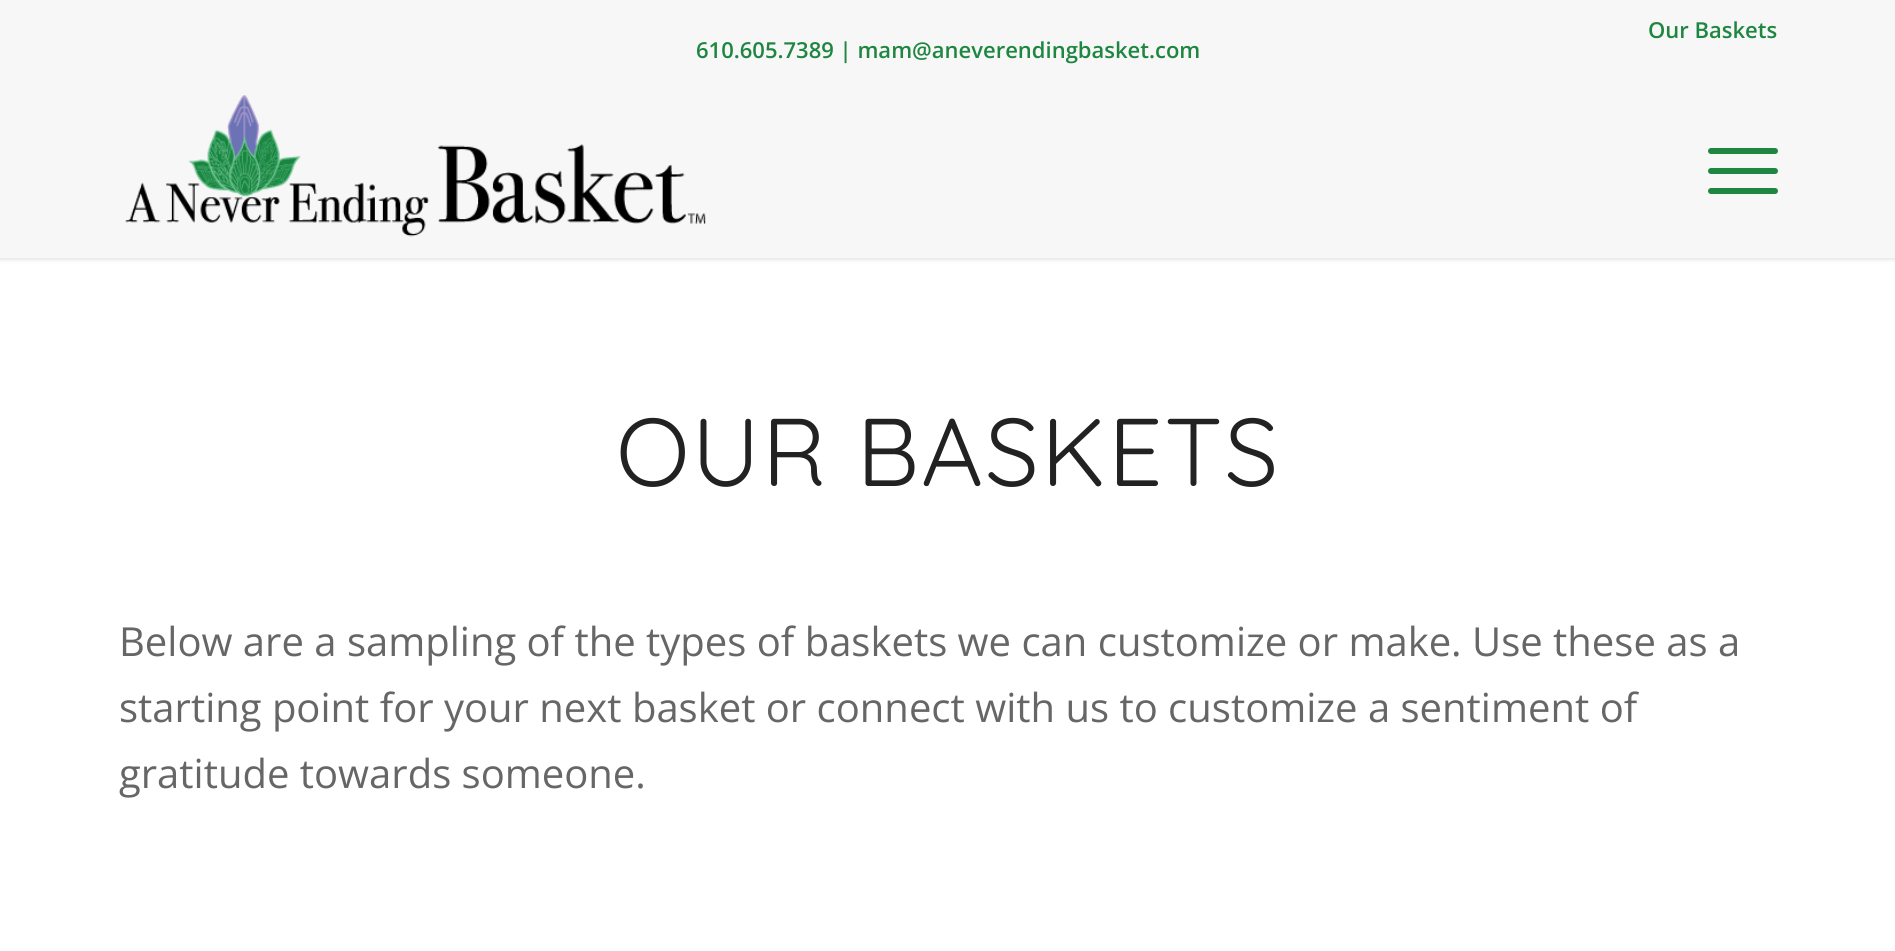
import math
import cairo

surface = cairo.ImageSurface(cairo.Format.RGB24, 1895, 951)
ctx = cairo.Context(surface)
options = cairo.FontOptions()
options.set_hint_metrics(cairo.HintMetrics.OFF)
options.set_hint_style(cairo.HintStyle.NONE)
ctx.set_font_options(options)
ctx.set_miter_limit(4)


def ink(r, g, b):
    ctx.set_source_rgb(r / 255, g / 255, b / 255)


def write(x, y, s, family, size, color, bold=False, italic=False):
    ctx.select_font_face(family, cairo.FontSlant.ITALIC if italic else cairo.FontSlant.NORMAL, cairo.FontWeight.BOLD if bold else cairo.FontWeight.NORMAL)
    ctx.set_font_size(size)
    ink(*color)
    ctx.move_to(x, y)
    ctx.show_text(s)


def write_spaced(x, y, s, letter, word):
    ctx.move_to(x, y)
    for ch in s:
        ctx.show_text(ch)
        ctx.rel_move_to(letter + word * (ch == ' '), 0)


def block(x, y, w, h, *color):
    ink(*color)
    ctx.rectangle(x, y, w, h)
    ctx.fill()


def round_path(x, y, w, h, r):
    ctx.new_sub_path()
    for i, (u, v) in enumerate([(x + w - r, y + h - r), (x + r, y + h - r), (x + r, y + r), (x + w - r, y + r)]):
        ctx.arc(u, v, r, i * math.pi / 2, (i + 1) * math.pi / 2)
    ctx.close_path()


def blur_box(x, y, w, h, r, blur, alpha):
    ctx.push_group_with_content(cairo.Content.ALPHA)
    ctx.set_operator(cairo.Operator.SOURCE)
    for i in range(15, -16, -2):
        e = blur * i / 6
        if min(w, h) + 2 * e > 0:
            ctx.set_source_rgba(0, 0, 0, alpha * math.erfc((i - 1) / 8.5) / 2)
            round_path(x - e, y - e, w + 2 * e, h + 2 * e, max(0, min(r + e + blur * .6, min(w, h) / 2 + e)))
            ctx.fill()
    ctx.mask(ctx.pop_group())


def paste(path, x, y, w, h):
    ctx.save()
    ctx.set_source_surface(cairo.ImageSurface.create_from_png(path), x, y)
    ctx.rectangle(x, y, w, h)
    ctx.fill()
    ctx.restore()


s1 = dict(family="Open Sans SemiBold", size=22, color=(30, 134, 65))
s2 = dict(family="Open Sans", size=40, color=(102, 102, 102))

ink(255, 255, 255)
ctx.paint()
ink(0, 0, 0)
blur_box(-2, -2, 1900, 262, 0, 2, 0.1)
block(0, 0, 1895, 258, 247, 247, 247)
write(1648, 38, "Our Baskets", **s1)
write(696, 58, "610.605.7389 | mam@aneverendingbasket.com", **s1)
paste("pic1.png", 125, 95, 581, 142)
round_path(1708, 168, 70, 6, 3)
ctx.fill()
round_path(1708, 148, 70, 6, 3)
ctx.fill()
round_path(1708, 188, 70, 6, 3)
ctx.fill()
ctx.select_font_face("Quicksand Light")
ctx.set_font_size(96)
ink(34, 34, 34)
write_spaced(616, 486, "OUR BASKETS", 2, 0)
write(119, 656, "Below are a sampling of the types of baskets we can customize or make. Use these as a", **s2)
write(119, 722, "starting point for your next basket or connect with us to customize a sentiment of", **s2)
write(119, 788, "gratitude towards someone.", **s2)
surface.write_to_png("screenshot.png")
